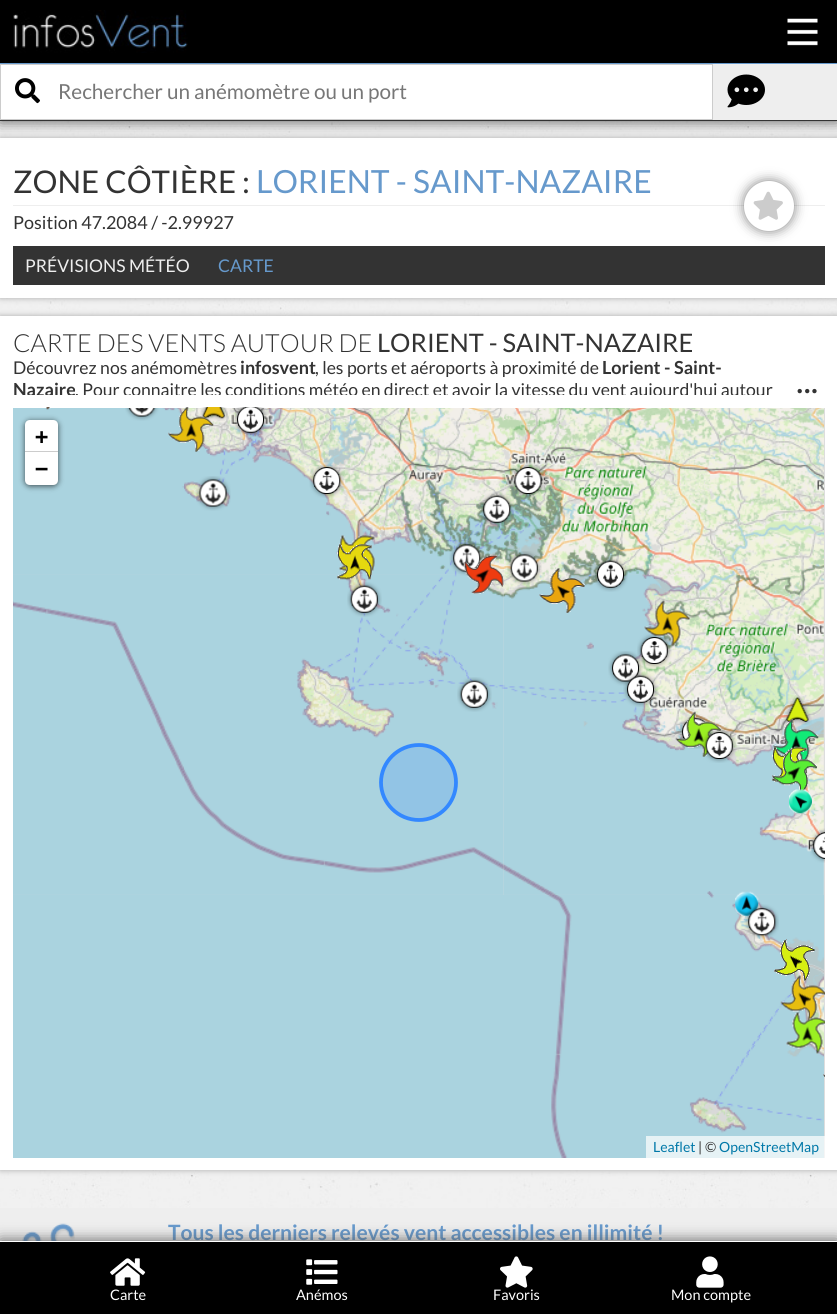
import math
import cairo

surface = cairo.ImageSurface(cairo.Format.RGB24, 837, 1314)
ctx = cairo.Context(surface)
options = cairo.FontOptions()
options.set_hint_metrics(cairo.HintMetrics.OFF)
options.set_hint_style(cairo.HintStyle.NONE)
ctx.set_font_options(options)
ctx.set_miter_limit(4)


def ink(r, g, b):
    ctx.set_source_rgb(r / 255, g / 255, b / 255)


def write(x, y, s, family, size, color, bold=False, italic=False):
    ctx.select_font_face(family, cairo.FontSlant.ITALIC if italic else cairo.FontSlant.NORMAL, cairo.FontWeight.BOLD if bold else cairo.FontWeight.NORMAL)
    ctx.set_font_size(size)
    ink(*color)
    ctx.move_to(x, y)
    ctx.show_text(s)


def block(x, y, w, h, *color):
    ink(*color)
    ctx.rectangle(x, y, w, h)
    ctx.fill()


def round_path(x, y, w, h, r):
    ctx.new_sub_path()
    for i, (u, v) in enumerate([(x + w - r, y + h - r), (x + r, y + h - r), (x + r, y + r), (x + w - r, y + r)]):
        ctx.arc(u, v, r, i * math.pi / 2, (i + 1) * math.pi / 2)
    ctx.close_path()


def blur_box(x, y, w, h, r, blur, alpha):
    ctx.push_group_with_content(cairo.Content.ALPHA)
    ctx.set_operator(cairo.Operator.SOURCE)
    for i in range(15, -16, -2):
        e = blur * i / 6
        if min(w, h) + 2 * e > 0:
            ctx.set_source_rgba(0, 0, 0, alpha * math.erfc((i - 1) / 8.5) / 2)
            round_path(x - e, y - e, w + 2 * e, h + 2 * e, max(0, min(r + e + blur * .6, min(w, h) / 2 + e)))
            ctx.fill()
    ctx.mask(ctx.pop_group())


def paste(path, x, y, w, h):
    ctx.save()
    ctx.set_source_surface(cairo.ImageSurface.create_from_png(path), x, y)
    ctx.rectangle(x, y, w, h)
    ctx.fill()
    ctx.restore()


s1 = dict(family="Lato", size=20.7, color=(119, 119, 119))
s2 = dict(family="Lato", size=31.25, color=(51, 51, 51))
s3 = dict(family="Lato", size=31.9, color=(102, 153, 204))
s4 = dict(family="Lato", size=18, color=(51, 51, 51))
s5 = dict(family="Lato", size=17.5, color=(238, 238, 238))
s6 = dict(family="Lato", size=17.5, color=(102, 153, 204))
s7 = dict(family="Lato Light", size=25, color=(51, 51, 51))
s8 = dict(family="Lato", size=25.5, color=(51, 51, 51))
s9 = dict(family="Lato", size=17.6, color=(51, 51, 51))
s10 = dict(family="Lato", size=18, color=(51, 51, 51), bold=True)
s11 = dict(family="Lato", size=35, color=(51, 51, 51))
s12 = dict(family="DejaVu Sans Mono", size=22, color=(0, 0, 0), bold=True)
s13 = dict(family="Lato", size=14, color=(0, 120, 168))
s14 = dict(family="Lato", size=14, color=(51, 51, 51))
s15 = dict(family="Lato", size=21.1, color=(102, 153, 204), bold=True)
s16 = dict(family="Lato", size=14.5, color=(255, 255, 255))

ink(255, 255, 255)
ctx.paint()
paste("pic1.png", 0, 121, 837, 1087)
ink(170, 170, 170)
blur_box(0, 138, 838, 160, 0, 3, 1)
block(0, 138, 837, 160, 255, 255, 255)
ink(85, 85, 85)
blur_box(0, 0, 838, 121, 0, 7.5, 1)
block(0, 0, 837, 63, 0, 0, 0)
block(0, 120, 837, 1, 51, 51, 51)
paste("pic2.png", 13, 10, 175, 43)
paste("pic3.png", 787, 18, 31, 28)
block(713, 64, 124, 56, 238, 238, 238)
block(0, 63, 837, 1, 102, 153, 204)
ink(255, 255, 255)
ctx.rectangle(0.5, 64.5, 712, 55)
ctx.fill_preserve()
ink(204, 204, 204)
ctx.set_line_width(1)
ctx.stroke()
paste("pic4.png", 15, 78, 25, 26)
write(58, 99, "Rechercher un anémomètre ou un port", **s1)
paste("pic5.png", 727, 74, 38, 34)
block(13, 205, 812, 1, 238, 238, 238)
write(13, 193, "ZONE CÔTIÈRE :", **s2)
write(256, 193, "LORIENT - SAINT-NAZAIRE", **s3)
write(13, 229, "Position 47.2084 / -2.99927", **s4)
block(13, 246, 812, 39, 51, 51, 51)
ink(0, 0, 0)
blur_box(744, 181, 50, 50, 25, 6, 0.5)
ink(255, 255, 255)
ctx.arc(769, 206, 25, 0, 2 * math.pi)
ctx.fill()
paste("pic6.png", 753, 191, 30, 29)
write(25, 272, "PRÉVISIONS MÉTÉO", **s5)
write(218, 272, "CARTE", **s6)
ink(170, 170, 170)
blur_box(0, 316, 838, 854, 0, 3, 1)
block(0, 316, 837, 854, 255, 255, 255)
write(13, 352, "CARTE DES VENTS AUTOUR DE", **s7)
write(377, 352, "LORIENT - SAINT-NAZAIRE", **s8)
write(13, 374, "Découvrez nos anémomètres", **s9)
write(240, 374, "infosvent", **s10)
write(315, 374, ", les ports et aéroports à proximité de", **s9)
write(602, 374, "Lorient - Saint-", **s10)
ctx.save()
ctx.rectangle(13, 356, 812, 39)
ctx.clip()
write(13, 396, "Nazaire", **s10)
write(75, 396, ". Pour connaitre les conditions météo en direct et avoir la vitesse du vent aujourd'hui autour", **s9)
ctx.restore()
write(796, 393, "...", **s11)
block(13, 408, 812, 750, 221, 221, 221)
paste("pic44.png", 13, 408, 171, 167)
paste("pic7.png", 46, 407, 5, 3)
paste("pic48.png", 183, 575, 321, 320)
paste("pic45.png", 184, 408, 320, 168)
paste("pic10.png", 200, 407, 28, 14)
paste("pic8.png", 168, 407, 46, 45)
paste("pic9.png", 125, 408, 34, 13)
paste("pic11.png", 233, 407, 35, 30)
paste("pic12.png", 196, 476, 35, 35)
paste("pic13.png", 309, 463, 35, 35)
paste("pic49.png", 503, 575, 321, 320)
paste("pic46.png", 504, 408, 320, 168)
paste("pic15.png", 511, 463, 35, 35)
paste("pic14.png", 479, 492, 35, 35)
paste("pic16.png", 339, 535, 36, 36)
paste("pic17.png", 449, 541, 35, 35)
paste("pic18.png", 337, 544, 35, 36)
paste("pic19.png", 463, 554, 41, 40)
paste("pic20.png", 507, 551, 35, 35)
paste("pic21.png", 539, 568, 46, 45)
paste("pic22.png", 593, 557, 35, 35)
paste("pic23.png", 347, 582, 35, 35)
paste("pic24.png", 644, 600, 46, 46)
paste("pic26.png", 637, 633, 35, 35)
paste("pic25.png", 608, 651, 35, 35)
paste("pic27.png", 457, 677, 35, 35)
paste("pic28.png", 623, 672, 35, 35)
paste("pic31.png", 678, 714, 35, 35)
paste("pic29.png", 675, 711, 46, 46)
paste("pic30.png", 783, 695, 29, 30)
paste("pic32.png", 702, 728, 35, 35)
paste("pic33.png", 773, 719, 46, 41)
paste("pic34.png", 772, 746, 35, 36)
paste("pic35.png", 772, 749, 45, 42)
paste("pic36.png", 789, 789, 23, 25)
paste("pic37.png", 810, 828, 15, 35)
paste("pic50.png", 504, 895, 320, 263)
paste("pic38.png", 735, 891, 24, 25)
paste("pic39.png", 744, 904, 35, 35)
paste("pic40.png", 774, 939, 41, 42)
paste("pic41.png", 780, 975, 45, 46)
paste("pic42.png", 786, 1011, 39, 43)
paste("pic43.png", 823, 1074, 2, 3)
paste("pic47.png", 13, 575, 171, 320)
block(13, 895, 491, 263, 170, 211, 223)
ink(146, 196, 229)
ctx.set_fill_rule(cairo.FillRule.EVEN_ODD)
ctx.new_path()
ctx.move_to(381, 782)
ctx.curve_to(381, 803, 398, 820, 419, 820)
ctx.curve_to(439, 820, 456, 803, 456, 782)
ctx.curve_to(456, 762, 439, 745, 419, 745)
ctx.curve_to(398, 745, 381, 762, 381, 782)
ctx.fill()
ctx.new_path()
ctx.move_to(381, 782.5)
ctx.curve_to(381, 803, 398, 820, 419, 820)
ctx.curve_to(439.5, 820, 456, 803, 456, 782.5)
ctx.curve_to(456, 762, 439.5, 745, 419, 745)
ctx.curve_to(398, 745, 381, 762, 381, 782.5)
ink(51, 136, 255)
ctx.set_line_width(3.8)
ctx.set_line_cap(cairo.LineCap.ROUND)
ctx.set_line_join(cairo.LineJoin.ROUND)
ctx.stroke()
ink(0, 0, 0)
blur_box(25, 421, 33, 65, 5, 3, 0.65)
ink(255, 255, 255)
ctx.new_path()
ctx.move_to(30, 420)
ctx.line_to(53, 420)
ctx.curve_to(56, 420, 58, 422, 58, 425)
ctx.line_to(58, 453)
ctx.line_to(25, 453)
ctx.line_to(25, 425)
ctx.curve_to(25, 422, 27, 420, 30, 420)
ctx.close_path()
ctx.fill()
block(25, 451, 33, 1, 204, 204, 204)
write(35, 444, "+", **s12)
ink(255, 255, 255)
ctx.new_path()
ctx.move_to(25, 453)
ctx.line_to(58, 453)
ctx.line_to(58, 480)
ctx.curve_to(58, 483, 56, 485, 53, 485)
ctx.line_to(30, 485)
ctx.curve_to(27, 485, 25, 483, 25, 480)
ctx.close_path()
ctx.fill()
write(35, 476, "−", **s12)
ctx.set_source_rgba(1, 1, 1, 0.7)
ctx.rectangle(646, 1136, 179, 22)
ctx.fill()
write(653, 1152, "Leaflet", **s13)
write(698, 1152, "| ©", **s14)
write(719, 1152, "OpenStreetMap", **s13)
block(0, 1208, 837, 33, 238, 238, 238)
paste("pic51.png", 22, 1223, 53, 18)
write(168, 1240, "Tous les derniers relevés vent accessibles en illimité !", **s15)
ink(85, 85, 85)
blur_box(0, 1241, 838, 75, 0, 7.5, 1)
block(0, 1242, 837, 72, 0, 0, 0)
block(0, 1241, 837, 1, 255, 255, 255)
paste("pic52.png", 110, 1258, 36, 28)
write(110, 1300, "Carte", **s16)
paste("pic53.png", 306, 1259, 32, 26)
write(296, 1300, "Anémos", **s16)
paste("pic54.png", 500, 1256, 33, 32)
write(493, 1300, "Favoris", **s16)
paste("pic55.png", 696, 1256, 28, 32)
write(671, 1300, "Mon compte", **s16)
surface.write_to_png("screenshot.png")
